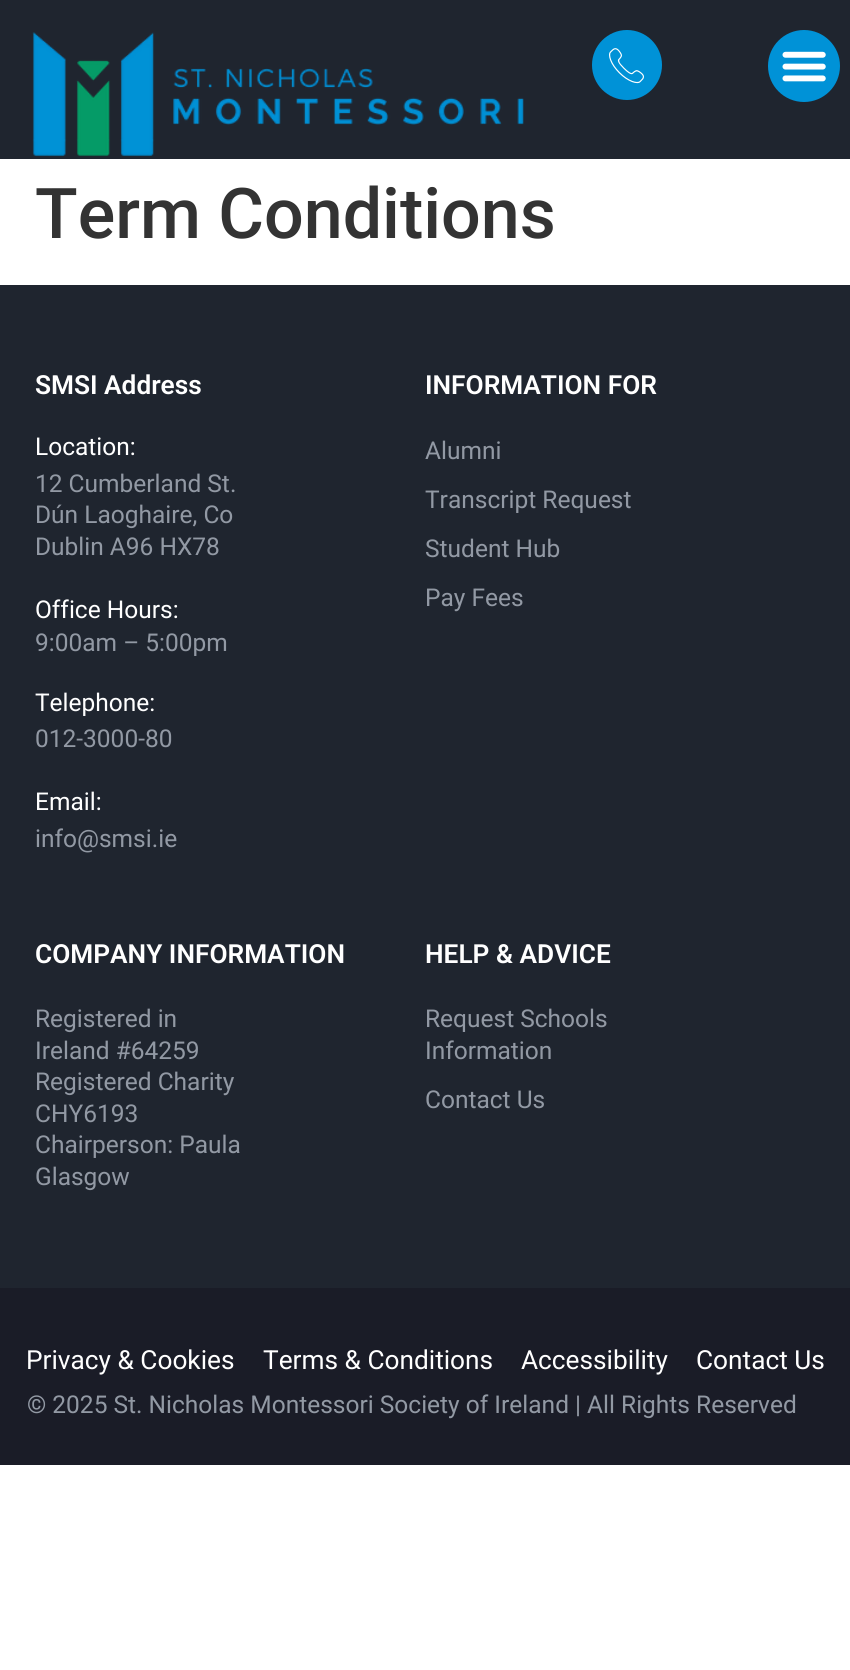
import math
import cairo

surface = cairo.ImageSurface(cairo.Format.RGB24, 850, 1670)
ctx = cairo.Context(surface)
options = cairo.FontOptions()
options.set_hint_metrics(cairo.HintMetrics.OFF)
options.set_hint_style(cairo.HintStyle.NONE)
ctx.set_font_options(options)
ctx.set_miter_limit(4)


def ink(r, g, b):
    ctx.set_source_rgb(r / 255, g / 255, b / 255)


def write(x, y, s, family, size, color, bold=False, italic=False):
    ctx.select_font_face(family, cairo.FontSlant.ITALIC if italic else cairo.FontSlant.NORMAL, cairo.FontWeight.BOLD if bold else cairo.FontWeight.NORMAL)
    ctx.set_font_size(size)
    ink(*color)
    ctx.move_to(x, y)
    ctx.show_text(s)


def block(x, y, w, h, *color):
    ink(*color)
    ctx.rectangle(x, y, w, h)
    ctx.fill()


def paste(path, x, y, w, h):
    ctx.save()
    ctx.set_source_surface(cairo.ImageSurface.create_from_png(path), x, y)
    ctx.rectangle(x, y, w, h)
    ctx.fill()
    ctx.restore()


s1 = dict(family="Roboto Medium", size=70, color=(51, 51, 51))
s2 = dict(family="Roboto SemiBold", size=26.25, color=(255, 255, 255))
s3 = dict(family="Roboto", size=24.5, color=(255, 255, 255))
s4 = dict(family="Roboto", size=24.5, color=(146, 153, 164))
s5 = dict(family="Roboto", size=26.25, color=(255, 255, 255))

ink(255, 255, 255)
ctx.paint()
block(0, 0, 850, 159, 31, 37, 47)
paste("pic1.png", 32, 32, 492, 125)
ink(0, 146, 215)
ctx.arc(627, 65, 35, 0, 2 * math.pi)
ctx.fill()
paste("pic2.png", 609, 48, 35, 36)
ctx.arc(804, 66, 36, 0, 2 * math.pi)
ctx.fill()
paste("pic3.png", 782, 51, 44, 31)
write(35, 238, "Term Conditions", **s1)
block(0, 285, 850, 1003, 31, 37, 47)
write(35, 394, "SMSI Address", **s2)
write(35, 455, "Location:", **s3)
write(35, 492, "12 Cumberland St.", **s4)
write(35, 523, "Dún Laoghaire, Co", **s4)
write(35, 555, "Dublin A96 HX78", **s4)
write(35, 618, "Office Hours:", **s3)
write(35, 651, "9:00am – 5:00pm", **s4)
write(35, 711, "Telephone:", **s3)
write(35, 747, "012-3000-80", **s4)
write(35, 810, "Email:", **s3)
write(35, 847, "info@smsi.ie", **s4)
write(425, 394, "INFORMATION FOR", **s2)
write(425, 459, "Alumni", **s4)
write(425, 508, "Transcript Request", **s4)
write(425, 557, "Student Hub", **s4)
write(425, 606, "Pay Fees", **s4)
write(35, 963, "COMPANY INFORMATION", **s2)
write(35, 1027, "Registered in", **s4)
write(35, 1059, "Ireland #64259", **s4)
write(35, 1090, "Registered Charity", **s4)
write(35, 1122, "CHY6193", **s4)
write(35, 1153, "Chairperson: Paula", **s4)
write(35, 1185, "Glasgow", **s4)
write(425, 963, "HELP & ADVICE", **s2)
write(425, 1027, "Request Schools", **s4)
write(425, 1059, "Information", **s4)
write(425, 1108, "Contact Us", **s4)
block(0, 1288, 850, 177, 26, 28, 39)
write(26, 1369, "Privacy & Cookies", **s5)
write(263, 1369, "Terms & Conditions", **s5)
write(521, 1369, "Accessibility", **s5)
write(696, 1369, "Contact Us", **s5)
write(27, 1413, "© 2025 St. Nicholas Montessori Society of Ireland | All Rights Reserved", **s4)
surface.write_to_png("screenshot.png")
